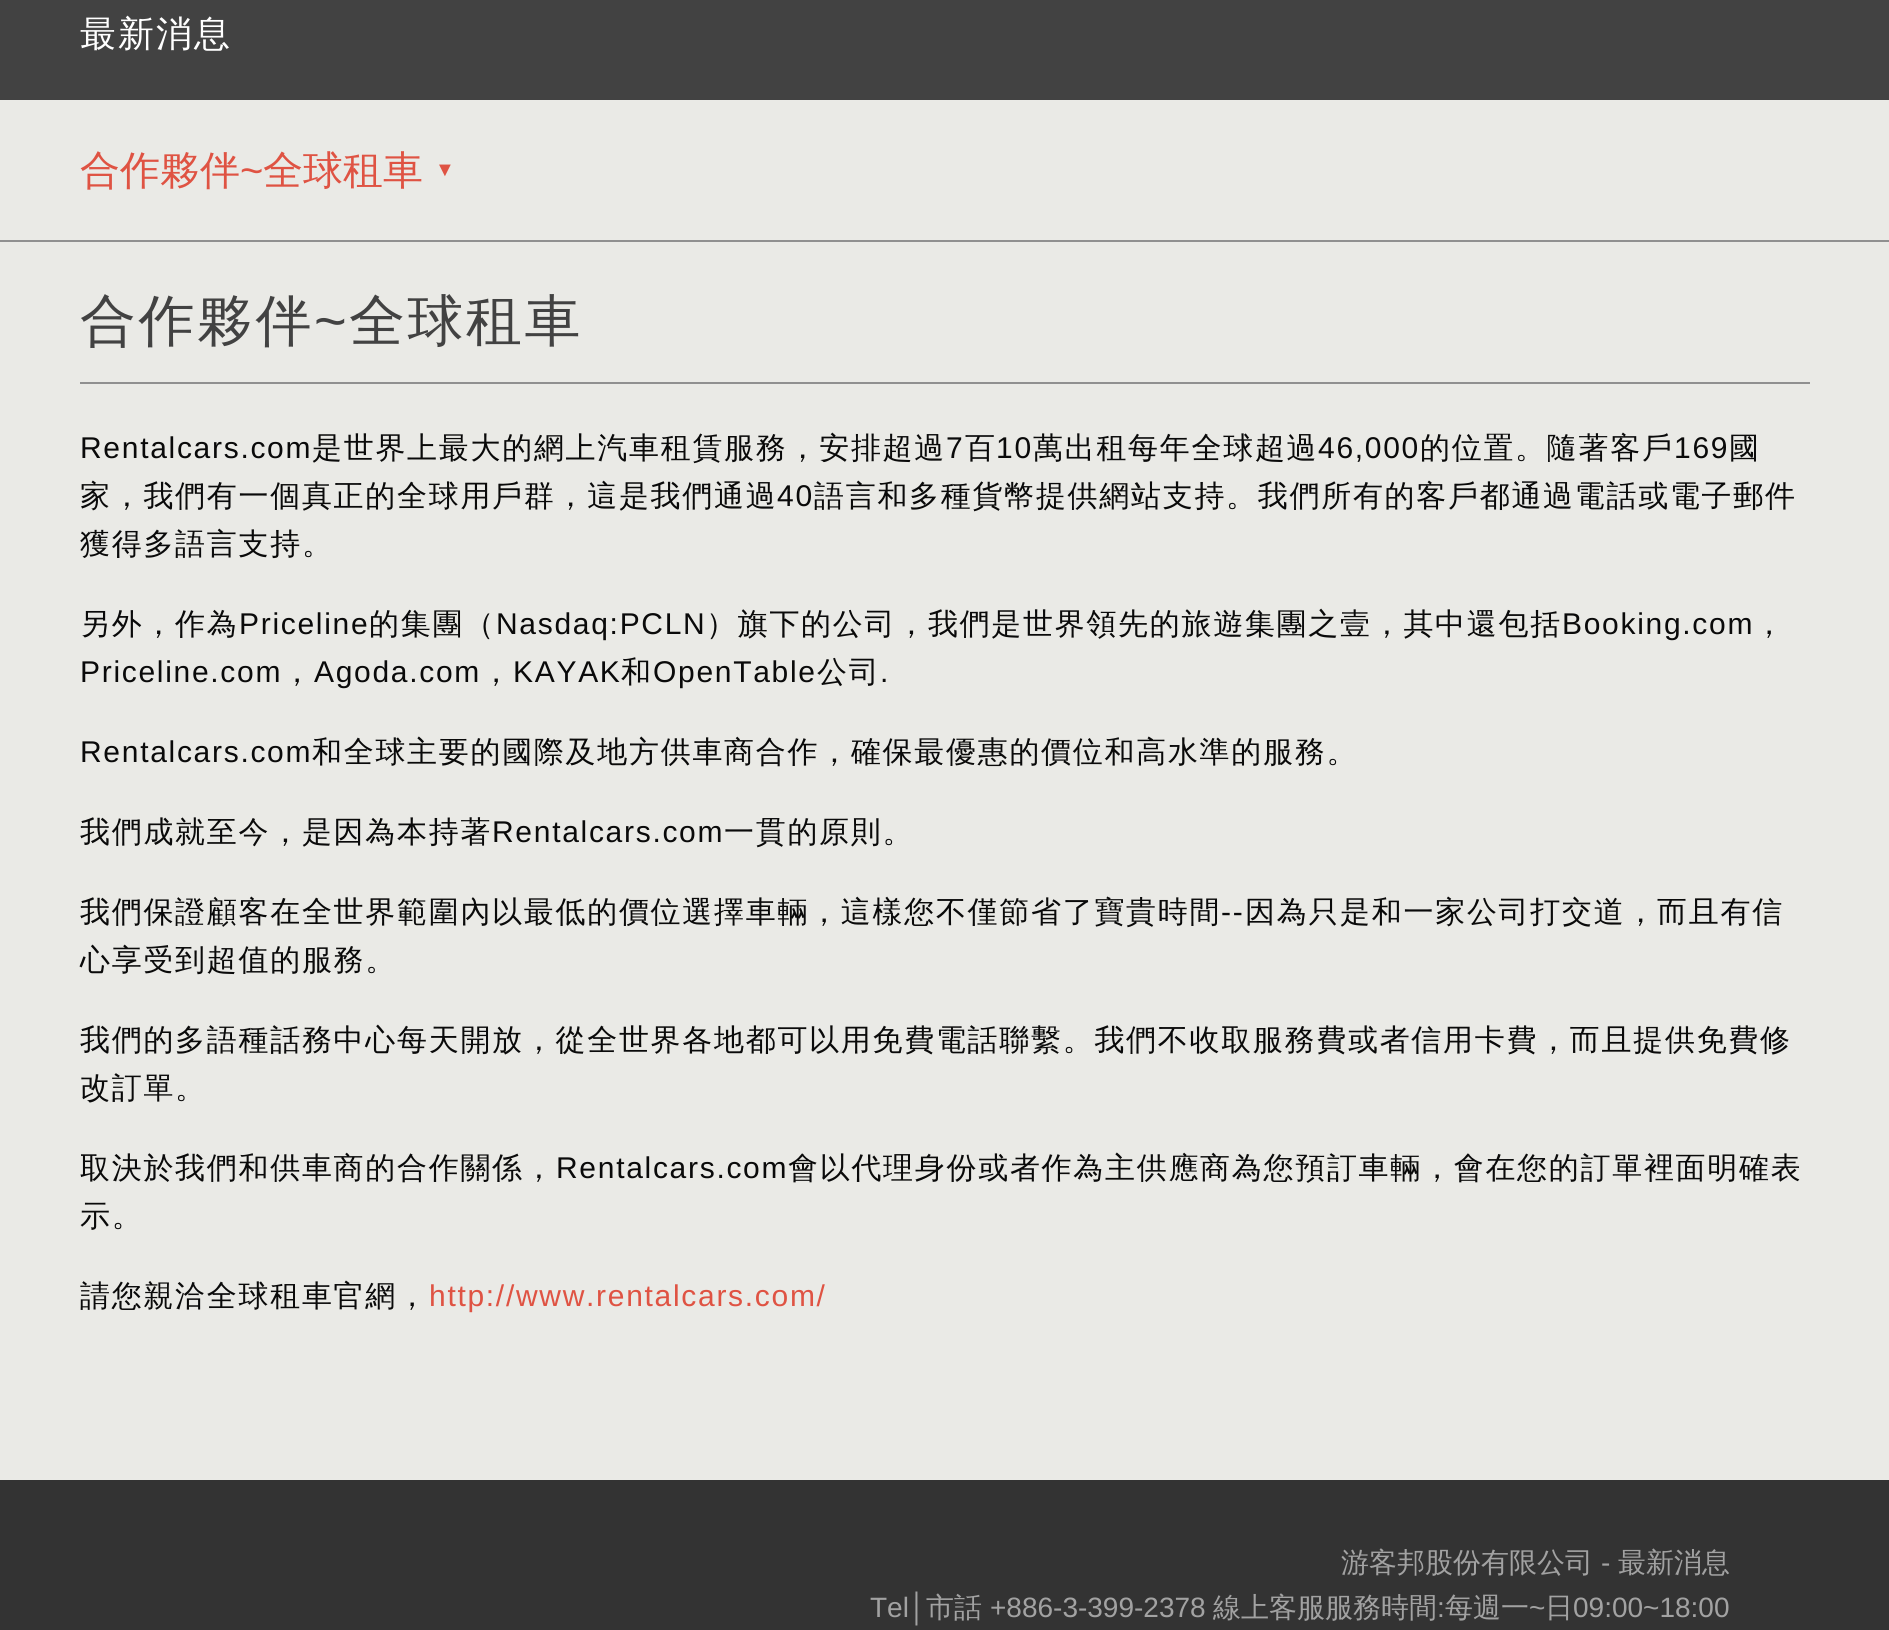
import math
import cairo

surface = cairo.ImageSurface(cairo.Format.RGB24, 1889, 1630)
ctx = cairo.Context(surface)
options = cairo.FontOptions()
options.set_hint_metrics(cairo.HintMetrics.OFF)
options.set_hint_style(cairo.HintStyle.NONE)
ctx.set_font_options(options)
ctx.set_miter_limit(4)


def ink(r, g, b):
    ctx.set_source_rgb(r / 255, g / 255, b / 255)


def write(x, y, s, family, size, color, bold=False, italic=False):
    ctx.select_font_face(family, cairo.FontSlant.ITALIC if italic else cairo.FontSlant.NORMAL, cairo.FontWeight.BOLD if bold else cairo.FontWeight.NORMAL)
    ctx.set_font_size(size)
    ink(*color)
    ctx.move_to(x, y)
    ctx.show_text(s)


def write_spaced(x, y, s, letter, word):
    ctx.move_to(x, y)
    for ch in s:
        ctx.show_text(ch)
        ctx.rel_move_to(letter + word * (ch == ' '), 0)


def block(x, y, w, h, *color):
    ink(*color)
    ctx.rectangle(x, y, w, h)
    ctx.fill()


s1 = dict(family="WenQuanYi Zen Hei Medium", size=40, color=(223, 83, 67))
s2 = dict(family="Liberation Sans", size=40, color=(223, 83, 67))
s3 = dict(family="Liberation Sans", size=20, color=(223, 83, 67))
s4 = dict(family="WenQuanYi Zen Hei Medium", size=28, color=(162, 162, 162))
s5 = dict(family="Liberation Sans", size=28, color=(162, 162, 162))

ink(234, 234, 230)
ctx.paint()
block(0, 0, 1889, 100, 66, 66, 66)
ctx.select_font_face("WenQuanYi Zen Hei Medium")
ctx.set_font_size(36)
ink(255, 255, 255)
write_spaced(80, 46, "最新消息", 2, 0)
block(0, 240, 1889, 2, 144, 144, 144)
write(80, 184, "合作夥伴", **s1)
write(240, 184, "~", **s2)
write(263, 184, "全球租車", **s1)
write(435, 176, "▼", **s3)
block(80, 382, 1730, 2, 144, 144, 144)
ctx.select_font_face("WenQuanYi Zen Hei Medium")
ctx.set_font_size(56)
ink(66, 66, 66)
write_spaced(80, 340, "合作夥伴", 2.5, 0)
ctx.select_font_face("Liberation Sans")
write_spaced(314, 340, "~", 2.5, 0)
ctx.select_font_face("WenQuanYi Zen Hei Medium")
write_spaced(349, 340, "全球租車", 2.5, 0)
ctx.select_font_face("Liberation Sans")
ctx.set_font_size(30)
ink(10, 10, 10)
write_spaced(80, 458, "Rentalcars.com", 1.7, 0)
ctx.select_font_face("WenQuanYi Zen Hei Medium")
write_spaced(312, 458, "是世界上最大的網上汽車租賃服務，安排超過", 1.7, 0)
ctx.select_font_face("Liberation Sans")
write_spaced(946, 458, "7", 1.7, 0)
ctx.select_font_face("WenQuanYi Zen Hei Medium")
write_spaced(965, 458, "百", 1.7, 0)
ctx.select_font_face("Liberation Sans")
write_spaced(996, 458, "10", 1.7, 0)
ctx.select_font_face("WenQuanYi Zen Hei Medium")
write_spaced(1033, 458, "萬出租每年全球超過", 1.7, 0)
ctx.select_font_face("Liberation Sans")
write_spaced(1318, 458, "46,000", 1.7, 0)
ctx.select_font_face("WenQuanYi Zen Hei Medium")
write_spaced(1420, 458, "的位置。隨著客戶", 1.7, 0)
ctx.select_font_face("Liberation Sans")
write_spaced(1674, 458, "169", 1.7, 0)
ctx.select_font_face("WenQuanYi Zen Hei Medium")
write_spaced(1729, 458, "國", 1.7, 0)
write_spaced(80, 506, "家，我們有一個真正的全球用戶群，這是我們通過", 1.7, 0)
ctx.select_font_face("Liberation Sans")
write_spaced(777, 506, "40", 1.7, 0)
ctx.select_font_face("WenQuanYi Zen Hei Medium")
write_spaced(814, 506, "語言和多種貨幣提供網站支持。我們所有的客戶都通過電話或電子郵件", 1.7, 0)
write_spaced(80, 554, "獲得多語言支持。", 1.7, 0)
write_spaced(80, 634, "另外，作為", 1.7, 0)
ctx.select_font_face("Liberation Sans")
write_spaced(239, 634, "Priceline", 1.7, 0)
ctx.select_font_face("WenQuanYi Zen Hei Medium")
write_spaced(369, 634, "的集團（", 1.7, 0)
ctx.select_font_face("Liberation Sans")
write_spaced(496, 634, "Nasdaq:PCLN", 1.7, 0)
ctx.select_font_face("WenQuanYi Zen Hei Medium")
write_spaced(706, 634, "）旗下的公司，我們是世界領先的旅遊集團之壹，其中還包括", 1.7, 0)
ctx.select_font_face("Liberation Sans")
write_spaced(1562, 634, "Booking.com", 1.7, 0)
ctx.select_font_face("WenQuanYi Zen Hei Medium")
write_spaced(1754, 634, "，", 1.7, 0)
ctx.select_font_face("Liberation Sans")
write_spaced(80, 682, "Priceline.com", 1.7, 0)
ctx.select_font_face("WenQuanYi Zen Hei Medium")
write_spaced(282, 682, "，", 1.7, 0)
ctx.select_font_face("Liberation Sans")
write_spaced(314, 682, "Agoda.com", 1.7, 0)
ctx.select_font_face("WenQuanYi Zen Hei Medium")
write_spaced(481, 682, "，", 1.7, 0)
ctx.select_font_face("Liberation Sans")
write_spaced(513, 682, "KAYAK", 1.7, 0)
ctx.select_font_face("WenQuanYi Zen Hei Medium")
write_spaced(621, 682, "和", 1.7, 0)
ctx.select_font_face("Liberation Sans")
write_spaced(653, 682, "OpenTable", 1.7, 0)
ctx.select_font_face("WenQuanYi Zen Hei Medium")
write_spaced(817, 682, "公司", 1.7, 0)
ctx.select_font_face("Liberation Sans")
write_spaced(880, 682, ".", 1.7, 0)
write_spaced(80, 762, "Rentalcars.com", 1.7, 0)
ctx.select_font_face("WenQuanYi Zen Hei Medium")
write_spaced(312, 762, "和全球主要的國際及地方供車商合作，確保最優惠的價位和高水準的服務。", 1.7, 0)
write_spaced(80, 842, "我們成就至今，是因為本持著", 1.7, 0)
ctx.select_font_face("Liberation Sans")
write_spaced(492, 842, "Rentalcars.com", 1.7, 0)
ctx.select_font_face("WenQuanYi Zen Hei Medium")
write_spaced(724, 842, "一貫的原則。", 1.7, 0)
write_spaced(80, 922, "我們保證顧客在全世界範圍內以最低的價位選擇車輛，這樣您不僅節省了寶貴時間", 1.7, 0)
ctx.select_font_face("Liberation Sans")
write_spaced(1221, 922, "--", 1.7, 0)
ctx.select_font_face("WenQuanYi Zen Hei Medium")
write_spaced(1245, 922, "因為只是和一家公司打交道，而且有信", 1.7, 0)
write_spaced(80, 970, "心享受到超值的服務。", 1.7, 0)
write_spaced(80, 1050, "我們的多語種話務中心每天開放，從全世界各地都可以用免費電話聯繫。我們不收取服務費或者信用卡費，而且提供免費修", 1.7, 0)
write_spaced(80, 1098, "改訂單。", 1.7, 0)
write_spaced(80, 1178, "取決於我們和供車商的合作關係，", 1.7, 0)
ctx.select_font_face("Liberation Sans")
write_spaced(556, 1178, "Rentalcars.com", 1.7, 0)
ctx.select_font_face("WenQuanYi Zen Hei Medium")
write_spaced(788, 1178, "會以代理身份或者作為主供應商為您預訂車輛，會在您的訂單裡面明確表", 1.7, 0)
write_spaced(80, 1226, "示。", 1.7, 0)
write_spaced(80, 1306, "請您親洽全球租車官網，", 1.7, 0)
ctx.select_font_face("Liberation Sans")
ink(223, 83, 67)
write_spaced(429, 1306, "http://www.rentalcars.com/", 1.7, 0)
block(0, 1480, 1889, 150, 51, 51, 51)
write(1341, 1572, "游客邦股份有限公司", **s4)
write(1601, 1572, "-", **s5)
write(1618, 1572, "最新消息", **s4)
write(870, 1617, "Tel│", **s5)
write(926, 1617, "市話", **s4)
write(990, 1617, "+886-3-399-2378", **s5)
write(1213, 1617, "線上客服服務時間", **s4)
write(1437, 1617, ":", **s5)
write(1445, 1617, "每週一", **s4)
write(1529, 1617, "~", **s5)
write(1545, 1617, "日", **s4)
write(1573, 1617, "09:00~18:00", **s5)
surface.write_to_png("screenshot.png")
